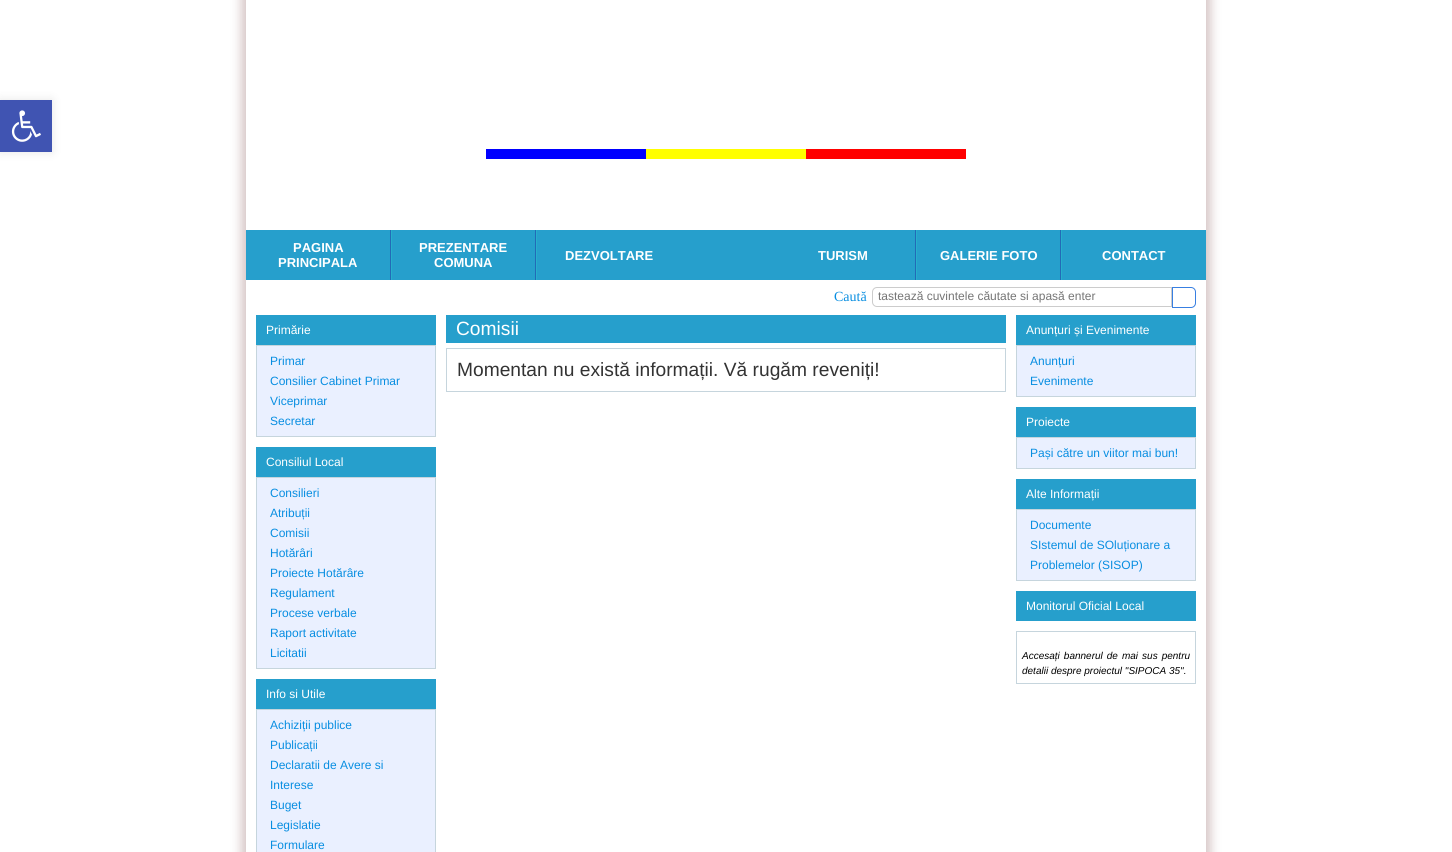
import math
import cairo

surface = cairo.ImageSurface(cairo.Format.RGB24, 1452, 852)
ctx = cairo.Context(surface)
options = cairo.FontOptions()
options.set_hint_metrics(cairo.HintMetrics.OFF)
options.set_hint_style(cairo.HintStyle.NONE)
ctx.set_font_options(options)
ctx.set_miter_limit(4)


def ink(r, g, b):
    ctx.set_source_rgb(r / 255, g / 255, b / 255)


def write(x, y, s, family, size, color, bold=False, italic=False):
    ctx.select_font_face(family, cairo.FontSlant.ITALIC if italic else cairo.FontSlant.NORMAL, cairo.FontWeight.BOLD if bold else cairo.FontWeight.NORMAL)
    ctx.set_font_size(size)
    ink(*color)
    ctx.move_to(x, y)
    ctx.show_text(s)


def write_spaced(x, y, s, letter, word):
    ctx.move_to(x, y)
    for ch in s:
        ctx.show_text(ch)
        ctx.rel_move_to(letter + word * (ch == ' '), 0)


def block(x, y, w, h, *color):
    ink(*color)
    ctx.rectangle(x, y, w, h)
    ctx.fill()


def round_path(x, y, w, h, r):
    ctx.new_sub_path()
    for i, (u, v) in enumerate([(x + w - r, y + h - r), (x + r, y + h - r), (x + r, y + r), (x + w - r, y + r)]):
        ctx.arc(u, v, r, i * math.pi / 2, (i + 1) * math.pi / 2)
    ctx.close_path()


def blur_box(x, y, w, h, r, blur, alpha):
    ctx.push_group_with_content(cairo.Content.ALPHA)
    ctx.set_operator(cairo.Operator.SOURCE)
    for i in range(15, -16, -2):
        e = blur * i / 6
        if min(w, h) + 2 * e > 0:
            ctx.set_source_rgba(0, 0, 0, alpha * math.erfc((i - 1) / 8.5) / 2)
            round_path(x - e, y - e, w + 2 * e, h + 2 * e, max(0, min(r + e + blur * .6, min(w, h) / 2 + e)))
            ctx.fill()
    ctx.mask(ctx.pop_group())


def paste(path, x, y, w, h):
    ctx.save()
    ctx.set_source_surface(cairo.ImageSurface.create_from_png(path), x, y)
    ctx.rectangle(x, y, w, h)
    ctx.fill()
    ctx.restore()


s1 = dict(family="Liberation Sans", size=13, color=(255, 255, 255), bold=True)
s2 = dict(family="Liberation Serif", size=14, color=(8, 142, 225))
s3 = dict(family="Liberation Sans", size=12, color=(117, 117, 117))
s4 = dict(family="Liberation Sans", size=12, color=(255, 255, 255))
s5 = dict(family="Liberation Sans", size=12, color=(8, 142, 225))
s6 = dict(family="Liberation Sans", size=19.2, color=(255, 255, 255))
s7 = dict(family="Liberation Sans", size=19.2, color=(51, 51, 51))
s8 = dict(family="Liberation Sans", size=10, color=(0, 0, 0), italic=True)

ink(255, 255, 255)
ctx.paint()
ink(0, 0, 0)
blur_box(0, 100, 52, 52, 0, 5, 0.1)
block(0, 100, 52, 52, 64, 84, 178)
paste("pic1.png", 11, 110, 30, 32)
ctx.save()
ctx.set_fill_rule(cairo.FillRule.EVEN_ODD)
ctx.new_path()
ctx.move_to(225, 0)
ctx.line_to(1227, 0)
ctx.line_to(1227, 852)
ctx.line_to(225, 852)
ctx.close_path()
ctx.move_to(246, 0)
ctx.line_to(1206, 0)
ctx.line_to(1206, 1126)
ctx.line_to(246, 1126)
ctx.close_path()
ctx.clip()
ink(215, 199, 199)
blur_box(241, -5, 970, 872, 0, 5, 1)
ctx.restore()
block(486, 149, 160, 10, 0, 0, 255)
block(646, 149, 160, 10, 255, 255, 0)
block(806, 149, 160, 10, 255, 0, 0)
block(246, 230, 960, 50, 38, 159, 204)
block(390, 230, 1, 50, 34, 106, 183)
write(293, 252, "PAGINA", **s1)
write(278, 267, "PRINCIPALA", **s1)
block(535, 230, 1, 50, 34, 106, 183)
block(391, 230, 1, 50, 38, 176, 204)
write(419, 252, "PREZENTARE", **s1)
write(434, 267, "COMUNA", **s1)
block(536, 230, 1, 50, 38, 176, 204)
write(565, 260, "DEZVOLTARE", **s1)
block(915, 230, 1, 50, 34, 106, 183)
write(818, 260, "TURISM", **s1)
block(1060, 230, 1, 50, 34, 106, 183)
block(916, 230, 1, 50, 38, 176, 204)
write(940, 260, "GALERIE FOTO", **s1)
block(1061, 230, 1, 50, 38, 176, 204)
write(1102, 260, "CONTACT", **s1)
write(834, 301, "Caută", **s2)
ctx.new_path()
ctx.move_to(877, 287.5)
ctx.line_to(1171.5, 287.5)
ctx.line_to(1171.5, 306.5)
ctx.line_to(877, 306.5)
ctx.curve_to(874.5, 306.5, 872.5, 304.5, 872.5, 302)
ctx.line_to(872.5, 292)
ctx.curve_to(872.5, 289.5, 874.5, 287.5, 877, 287.5)
ctx.close_path()
ink(204, 204, 204)
ctx.set_line_width(1)
ctx.stroke()
write(878, 300, "tastează cuvintele căutate si apasă enter", **s3)
ctx.new_path()
ctx.move_to(1172.5, 287.5)
ctx.line_to(1191, 287.5)
ctx.curve_to(1193.5, 287.5, 1195.5, 289.5, 1195.5, 292)
ctx.line_to(1195.5, 303)
ctx.curve_to(1195.5, 305.5, 1193.5, 307.5, 1191, 307.5)
ctx.line_to(1172.5, 307.5)
ctx.close_path()
ink(56, 127, 225)
ctx.stroke()
block(256, 315, 180, 30, 38, 159, 204)
write(266, 334, "Primărie", **s4)
ink(234, 240, 255)
ctx.rectangle(256.5, 345.5, 179, 91)
ctx.fill_preserve()
ink(198, 213, 221)
ctx.stroke()
write(270, 365, "Primar", **s5)
write(270, 385, "Consilier Cabinet Primar", **s5)
write(270, 405, "Viceprimar", **s5)
write(270, 425, "Secretar", **s5)
block(256, 447, 180, 30, 38, 159, 204)
write(266, 466, "Consiliul Local", **s4)
ink(234, 240, 255)
ctx.rectangle(256.5, 477.5, 179, 191)
ctx.fill_preserve()
ink(198, 213, 221)
ctx.stroke()
write(270, 497, "Consilieri", **s5)
write(270, 517, "Atribuții", **s5)
write(270, 537, "Comisii", **s5)
write(270, 557, "Hotărâri", **s5)
write(270, 577, "Proiecte Hotărâre", **s5)
write(270, 597, "Regulament", **s5)
write(270, 617, "Procese verbale", **s5)
write(270, 637, "Raport activitate", **s5)
write(270, 657, "Licitatii", **s5)
block(256, 679, 180, 30, 38, 159, 204)
write(266, 698, "Info si Utile", **s4)
ink(234, 240, 255)
ctx.rectangle(256.5, 709.5, 179, 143)
ctx.fill_preserve()
ink(198, 213, 221)
ctx.stroke()
write(270, 729, "Achiziții publice", **s5)
write(270, 749, "Publicații", **s5)
write(270, 769, "Declaratii de Avere si", **s5)
write(270, 789, "Interese", **s5)
write(270, 809, "Buget", **s5)
write(270, 829, "Legislatie", **s5)
write(270, 849, "Formulare", **s5)
block(446, 315, 560, 28, 38, 159, 204)
write(456, 335, "Comisii", **s6)
ctx.rectangle(446.5, 348.5, 559, 43)
ink(198, 213, 221)
ctx.stroke()
write(457, 376, "Momentan nu există informații. Vă rugăm reveniți!", **s7)
block(1016, 315, 180, 30, 38, 159, 204)
write(1026, 334, "Anunțuri și Evenimente", **s4)
ink(234, 240, 255)
ctx.rectangle(1016.5, 345.5, 179, 51)
ctx.fill_preserve()
ink(198, 213, 221)
ctx.stroke()
write(1030, 365, "Anunțuri", **s5)
write(1030, 385, "Evenimente", **s5)
block(1016, 407, 180, 30, 38, 159, 204)
write(1026, 426, "Proiecte", **s4)
ink(234, 240, 255)
ctx.rectangle(1016.5, 437.5, 179, 31)
ctx.fill_preserve()
ink(198, 213, 221)
ctx.stroke()
write(1030, 457, "Pași către un viitor mai bun!", **s5)
block(1016, 479, 180, 30, 38, 159, 204)
write(1026, 498, "Alte Informații", **s4)
ink(234, 240, 255)
ctx.rectangle(1016.5, 509.5, 179, 71)
ctx.fill_preserve()
ink(198, 213, 221)
ctx.stroke()
write(1030, 529, "Documente", **s5)
write(1030, 549, "SIstemul de SOluționare a", **s5)
write(1030, 569, "Problemelor (SISOP)", **s5)
block(1016, 591, 180, 30, 38, 159, 204)
write(1026, 610, "Monitorul Oficial Local", **s4)
ctx.rectangle(1016.5, 631.5, 179, 52)
ink(198, 213, 221)
ctx.stroke()
ctx.select_font_face("Liberation Sans", cairo.FontSlant.ITALIC)
ctx.set_font_size(10)
ink(0, 0, 0)
write_spaced(1022, 659, "Accesați bannerul de mai sus pentru", 0, 1.25)
write(1022, 674, "detalii despre proiectul \"SIPOCA 35\".", **s8)
surface.write_to_png("screenshot.png")
